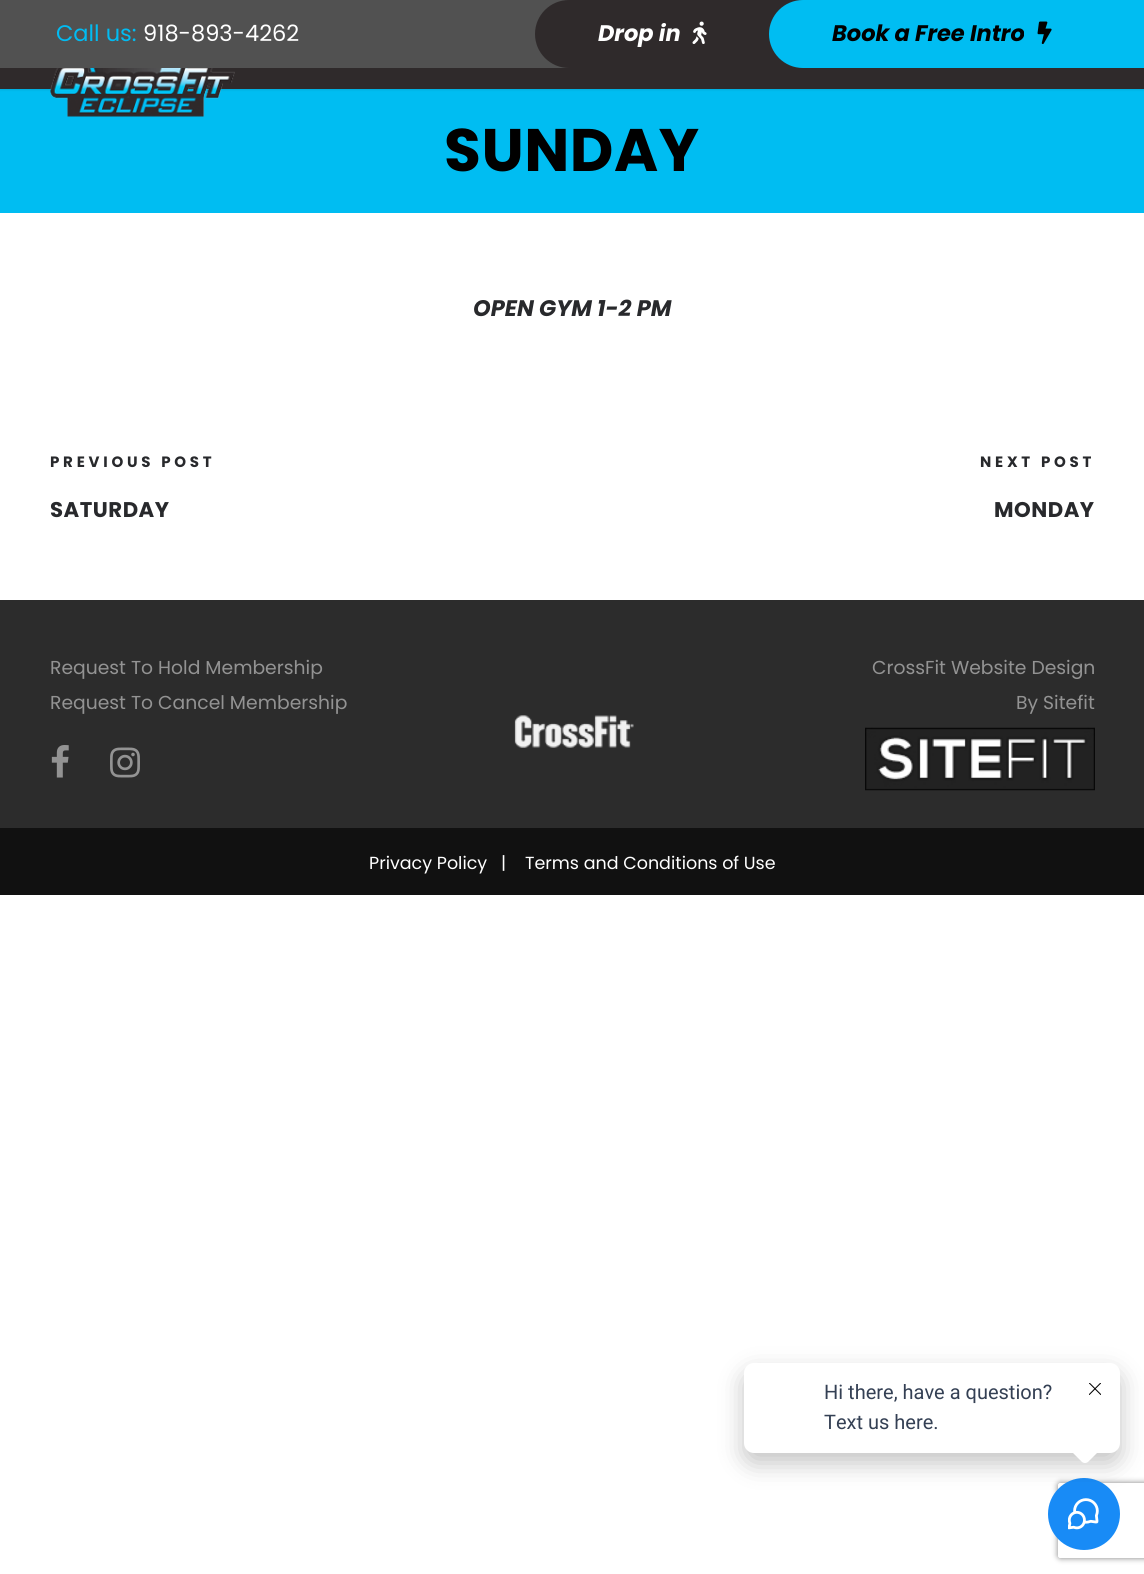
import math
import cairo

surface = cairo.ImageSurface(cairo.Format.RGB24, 1144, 1574)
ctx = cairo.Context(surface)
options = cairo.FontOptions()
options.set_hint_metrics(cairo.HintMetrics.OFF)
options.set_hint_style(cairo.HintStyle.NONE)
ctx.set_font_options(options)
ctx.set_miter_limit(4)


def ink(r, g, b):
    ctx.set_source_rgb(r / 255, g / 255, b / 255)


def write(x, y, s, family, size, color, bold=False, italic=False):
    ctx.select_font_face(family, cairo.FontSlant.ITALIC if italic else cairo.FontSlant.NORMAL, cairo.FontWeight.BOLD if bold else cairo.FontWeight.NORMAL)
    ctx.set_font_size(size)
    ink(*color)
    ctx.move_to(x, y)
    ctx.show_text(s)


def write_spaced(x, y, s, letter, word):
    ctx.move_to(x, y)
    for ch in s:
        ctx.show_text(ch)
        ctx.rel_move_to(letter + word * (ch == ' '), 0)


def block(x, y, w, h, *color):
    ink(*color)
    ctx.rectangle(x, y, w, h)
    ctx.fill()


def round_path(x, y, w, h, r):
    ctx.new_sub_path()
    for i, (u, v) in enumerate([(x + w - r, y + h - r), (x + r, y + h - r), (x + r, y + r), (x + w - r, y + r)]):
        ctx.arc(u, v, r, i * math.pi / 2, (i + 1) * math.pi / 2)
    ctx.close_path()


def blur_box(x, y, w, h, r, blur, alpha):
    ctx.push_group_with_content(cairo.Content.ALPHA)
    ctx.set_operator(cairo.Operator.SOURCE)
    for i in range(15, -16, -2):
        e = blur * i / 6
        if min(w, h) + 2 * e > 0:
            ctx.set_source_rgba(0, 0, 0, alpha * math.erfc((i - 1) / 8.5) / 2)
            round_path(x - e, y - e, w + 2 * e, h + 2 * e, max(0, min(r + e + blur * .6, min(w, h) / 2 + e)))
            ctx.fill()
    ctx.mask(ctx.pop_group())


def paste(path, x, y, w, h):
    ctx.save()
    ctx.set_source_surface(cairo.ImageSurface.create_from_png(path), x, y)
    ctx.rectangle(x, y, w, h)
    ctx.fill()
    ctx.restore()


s1 = dict(family="Poppins", size=22.5, color=(0, 188, 243))
s2 = dict(family="Poppins", size=22.5, color=(255, 255, 255))
s3 = dict(family="Poppins", size=22.5, color=(255, 255, 255), bold=True, italic=True)
s4 = dict(family="Poppins", size=22.5, color=(0, 0, 0), bold=True, italic=True)
s5 = dict(family="Poppins", size=22.5, color=(40, 41, 44), bold=True, italic=True)
s6 = dict(family="Poppins", size=18.75, color=(147, 147, 147))
s7 = dict(family="Poppins", size=17.5, color=(255, 255, 255))
s8 = dict(family="Roboto", size=20, color=(52, 64, 84))

ink(255, 255, 255)
ctx.paint()
block(0, 89, 1144, 124, 0, 189, 242)
ink(0, 0, 0)
blur_box(0, -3, 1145, 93, 0, 1, 0.1)
block(0, 68, 1144, 21, 47, 42, 43)
paste("pic1.png", 50, 68, 185, 49)
block(0, 0, 569, 68, 81, 81, 81)
write(56, 41, "Call us:", **s1)
write(143, 41, "918-893-4262", **s2)
ink(47, 42, 43)
round_path(535, 0, 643, 68, 34)
ctx.fill()
write(598, 41, "Drop in", **s3)
paste("pic2.png", 692, 21, 15, 23)
gradient = cairo.LinearGradient(-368, 34, 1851, 34)
gradient.add_color_stop_rgba(0, 0.839, 0.843, 0.843, 1)
gradient.add_color_stop_rgba(0.5, 1, 1, 1, 1)
gradient.add_color_stop_rgba(0.5, 0, 0.741, 0.949, 1)
gradient.add_color_stop_rgba(1, 0, 0.741, 0.949, 1)
ctx.set_source(gradient)
round_path(769, 0, 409, 68, 34)
ctx.fill()
write(832, 41, "Book a Free Intro", **s4)
paste("pic3.png", 1037, 21, 15, 23)
ctx.select_font_face("Poppins", cairo.FontSlant.NORMAL, cairo.FontWeight.BOLD)
ctx.set_font_size(60)
write_spaced(444, 171, "SUNDAY", 0.5, 0)
write(473, 316, "OPEN GYM 1-2 PM", **s5)
ctx.select_font_face("Poppins", cairo.FontSlant.NORMAL, cairo.FontWeight.BOLD)
ctx.set_font_size(15)
write_spaced(50, 467, "PREVIOUS POST", 3.75, 0)
ctx.set_font_size(21.25)
write_spaced(50, 517, "SATURDAY", 0.5, 0)
ctx.set_font_size(15)
write_spaced(980, 467, "NEXT POST", 3.75, 0)
ctx.set_font_size(21.25)
write_spaced(994, 517, "MONDAY", 0.5, 0)
block(0, 600, 1144, 228, 44, 44, 44)
write(50, 674, "Request To Hold Membership", **s6)
write(50, 709, "Request To Cancel Membership", **s6)
paste("pic4.png", 51, 745, 18, 33)
paste("pic5.png", 110, 747, 30, 31)
write(872, 674, "CrossFit Website Design", **s6)
write(1016, 709, "By Sitefit", **s6)
paste("pic6.png", 865, 727, 230, 64)
paste("pic7.png", 514, 715, 120, 33)
block(0, 828, 1144, 67, 17, 17, 17)
write(369, 869, "Privacy Policy", **s7)
write(501, 869, "|", **s7)
write(525, 869, "Terms and Conditions of Use", **s7)
ctx.save()
ctx.set_fill_rule(cairo.FillRule.EVEN_ODD)
ctx.new_path()
ctx.move_to(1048, 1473)
ctx.line_to(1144, 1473)
ctx.line_to(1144, 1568)
ctx.line_to(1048, 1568)
ctx.close_path()
ctx.move_to(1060.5, 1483)
ctx.line_to(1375.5, 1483)
ctx.curve_to(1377, 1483, 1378, 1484, 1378, 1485.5)
ctx.line_to(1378, 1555.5)
ctx.curve_to(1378, 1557, 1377, 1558, 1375.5, 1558)
ctx.line_to(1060.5, 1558)
ctx.curve_to(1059, 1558, 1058, 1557, 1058, 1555.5)
ctx.line_to(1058, 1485.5)
ctx.curve_to(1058, 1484, 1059, 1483, 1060.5, 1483)
ctx.close_path()
ctx.clip()
ink(128, 128, 128)
blur_box(1058, 1483, 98, 75, 2.5, 3, 1)
ctx.restore()
ink(24, 139, 246)
ctx.arc(1084, 1514, 36, 0, 2 * math.pi)
ctx.fill()
paste("pic9.png", 1068, 1498, 31, 32)
ink(0, 0, 0)
blur_box(744, 1373, 376, 90, 10, 12.5, 0.24)
ink(255, 255, 255)
round_path(744, 1363, 376, 90, 10)
ctx.fill()
write(824, 1399, "Hi there, have a question?", **s8)
write(824, 1429, "Text us here.", **s8)
ink(255, 255, 255)
ctx.new_path()
ctx.move_to(1088.5, 1433.5)
ctx.line_to(1099, 1444)
ctx.curve_to(1101, 1446, 1101, 1449, 1099, 1451)
ctx.line_to(1088.5, 1461.5)
ctx.curve_to(1086.5, 1463.5, 1083.5, 1463.5, 1081.5, 1461.5)
ctx.line_to(1071, 1451)
ctx.curve_to(1069, 1449, 1069, 1446, 1071, 1444)
ctx.line_to(1081.5, 1433.5)
ctx.curve_to(1083.5, 1431.5, 1086.5, 1431.5, 1088.5, 1433.5)
ctx.close_path()
ctx.fill()
paste("pic8.png", 1089, 1383, 12, 12)
surface.write_to_png("screenshot.png")
